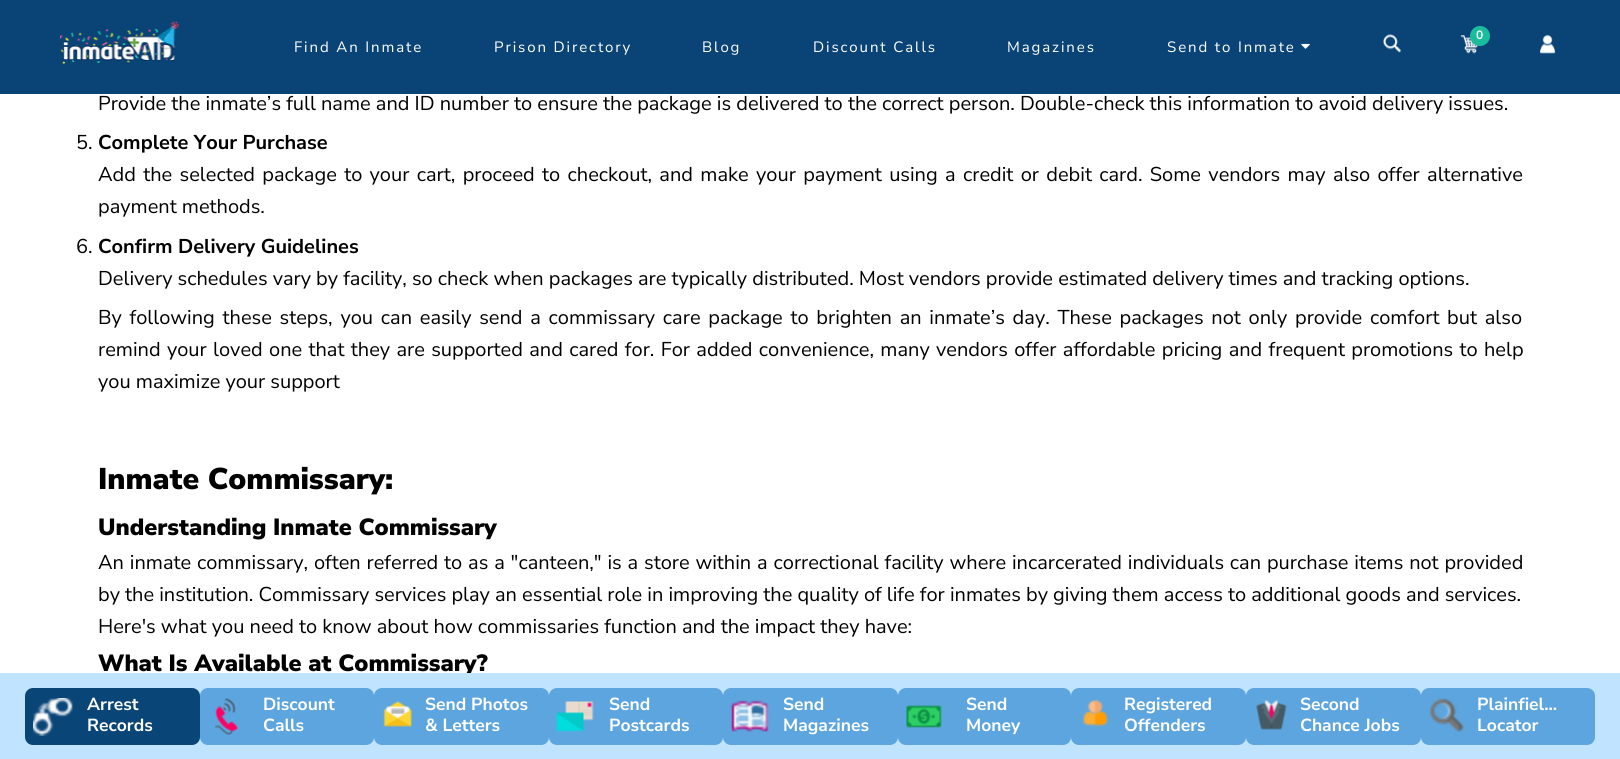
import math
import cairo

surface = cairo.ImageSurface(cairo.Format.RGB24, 1620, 759)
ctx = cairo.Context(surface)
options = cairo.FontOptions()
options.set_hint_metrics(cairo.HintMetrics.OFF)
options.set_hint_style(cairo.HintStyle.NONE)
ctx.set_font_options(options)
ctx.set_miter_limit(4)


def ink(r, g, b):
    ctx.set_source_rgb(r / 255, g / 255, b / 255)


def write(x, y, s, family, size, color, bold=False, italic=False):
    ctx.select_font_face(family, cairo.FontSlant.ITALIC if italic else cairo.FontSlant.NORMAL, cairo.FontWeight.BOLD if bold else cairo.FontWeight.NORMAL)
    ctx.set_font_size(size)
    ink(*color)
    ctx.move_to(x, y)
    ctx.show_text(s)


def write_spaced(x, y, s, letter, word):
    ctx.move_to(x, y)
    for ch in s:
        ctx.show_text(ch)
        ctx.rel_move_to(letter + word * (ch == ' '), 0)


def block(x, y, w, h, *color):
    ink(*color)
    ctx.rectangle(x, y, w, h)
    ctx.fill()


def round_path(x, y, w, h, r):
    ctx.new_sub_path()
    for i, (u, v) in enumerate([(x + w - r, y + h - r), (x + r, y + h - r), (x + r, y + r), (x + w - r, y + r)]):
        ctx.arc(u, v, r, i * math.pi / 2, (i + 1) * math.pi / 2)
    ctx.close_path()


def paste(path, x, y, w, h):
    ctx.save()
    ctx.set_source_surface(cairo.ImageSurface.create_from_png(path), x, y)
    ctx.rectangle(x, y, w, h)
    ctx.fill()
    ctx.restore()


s1 = dict(family="Nunito Sans", size=12, color=(255, 255, 255), bold=True)
s2 = dict(family="Nunito Sans", size=20, color=(0, 0, 0))
s3 = dict(family="Nunito Sans", size=20, color=(0, 0, 0), bold=True)
s4 = dict(family="Nunito Sans Black", size=30, color=(0, 0, 0))
s5 = dict(family="Nunito Sans Black", size=23.4, color=(0, 0, 0))
s6 = dict(family="Nunito Sans", size=17.5, color=(255, 255, 255), bold=True)

ink(255, 255, 255)
ctx.paint()
block(0, 0, 1620, 94, 10, 68, 119)
paste("pic1.png", 60, 21, 119, 43)
paste("pic2.png", 1383, 34, 18, 19)
paste("pic3.png", 1460, 35, 18, 19)
ink(26, 188, 156)
ctx.arc(1480, 36, 10, 0, 2 * math.pi)
ctx.fill()
write(1476, 39, "0", **s1)
paste("pic4.png", 1540, 35, 15, 19)
ctx.select_font_face("Nunito Sans")
ctx.set_font_size(15)
write_spaced(294, 52, "Find An Inmate", 1.9, 0)
write_spaced(494, 52, "Prison Directory", 1.9, 0)
write_spaced(702, 52, "Blog", 1.9, 0)
write_spaced(813, 52, "Discount Calls", 1.9, 0)
write_spaced(1007, 52, "Magazines", 1.9, 0)
write_spaced(1167, 52, "Send to Inmate", 1.9, 0)
paste("pic5.png", 1301, 43, 9, 6)
write(98, 110, "Provide the inmate’s full name and ID number to ensure the package is delivered to the correct person. Double-check this information to avoid delivery issues.", **s2)
write(76, 149, "5.", **s2)
write(98, 149, "Complete Your Purchase", **s3)
ctx.select_font_face("Nunito Sans")
write_spaced(98, 181, "Add the selected package to your cart, proceed to checkout, and make your payment using a credit or debit card. Some vendors may also offer alternative", 0, 2.2)
write(98, 213, "payment methods.", **s2)
write(76, 253, "6.", **s2)
write(98, 253, "Confirm Delivery Guidelines", **s3)
write(98, 285, "Delivery schedules vary by facility, so check when packages are typically distributed. Most vendors provide estimated delivery times and tracking options.", **s2)
write_spaced(98, 324, "By following these steps, you can easily send a commissary care package to brighten an inmate’s day. These packages not only provide comfort but also", 0, 2.6)
write_spaced(98, 356, "remind your loved one that they are supported and cared for. For added convenience, many vendors offer affordable pricing and frequent promotions to help", 0, 1.2)
write(98, 388, "you maximize your support", **s2)
write(98, 489, "Inmate Commissary:", **s4)
write(98, 535, "Understanding Inmate Commissary", **s5)
ctx.select_font_face("Nunito Sans")
ctx.set_font_size(20)
write_spaced(98, 569, "An inmate commissary, often referred to as a \"canteen,\" is a store within a correctional facility where incarcerated individuals can purchase items not provided", 0, 0.7)
write(98, 601, "by the institution. Commissary services play an essential role in improving the quality of life for inmates by giving them access to additional goods and services.", **s2)
write(98, 633, "Here's what you need to know about how commissaries function and the impact they have:", **s2)
write(98, 671, "What Is Available at Commissary?", **s5)
block(0, 673, 1620, 86, 192, 227, 255)
ink(10, 69, 119)
round_path(25, 688, 175, 57, 8)
ctx.fill()
paste("pic6.png", 33, 698, 40, 38)
write(87, 710, "Arrest", **s6)
write(87, 731, "Records", **s6)
ink(93, 165, 222)
round_path(200, 688, 174, 57, 8)
ctx.fill()
paste("pic7.png", 215, 698, 24, 37)
write(263, 710, "Discount", **s6)
write(263, 731, "Calls", **s6)
ink(93, 165, 222)
round_path(374, 688, 175, 57, 8)
ctx.fill()
paste("pic8.png", 383, 701, 29, 26)
write(425, 710, "Send Photos", **s6)
write(425, 731, "& Letters", **s6)
ink(93, 165, 222)
round_path(549, 688, 174, 57, 8)
ctx.fill()
paste("pic9.png", 555, 701, 39, 31)
write(609, 710, "Send", **s6)
write(609, 731, "Postcards", **s6)
ink(93, 165, 222)
round_path(723, 688, 175, 57, 8)
ctx.fill()
paste("pic10.png", 731, 700, 38, 32)
write(783, 710, "Send", **s6)
write(783, 731, "Magazines", **s6)
ink(93, 165, 222)
round_path(898, 688, 173, 57, 8)
ctx.fill()
paste("pic11.png", 906, 705, 36, 23)
write(966, 710, "Send", **s6)
write(966, 731, "Money", **s6)
ink(93, 165, 222)
round_path(1071, 688, 175, 57, 8)
ctx.fill()
paste("pic12.png", 1082, 699, 27, 28)
write(1124, 710, "Registered", **s6)
write(1124, 731, "Offenders", **s6)
ink(93, 165, 222)
round_path(1246, 688, 175, 57, 8)
ctx.fill()
paste("pic13.png", 1256, 699, 31, 31)
write(1300, 710, "Second", **s6)
write(1300, 731, "Chance Jobs", **s6)
ink(93, 165, 222)
round_path(1421, 688, 174, 57, 8)
ctx.fill()
paste("pic14.png", 1429, 698, 35, 34)
write(1477, 710, "Plainfiel...", **s6)
write(1477, 731, "Locator", **s6)
surface.write_to_png("screenshot.png")
